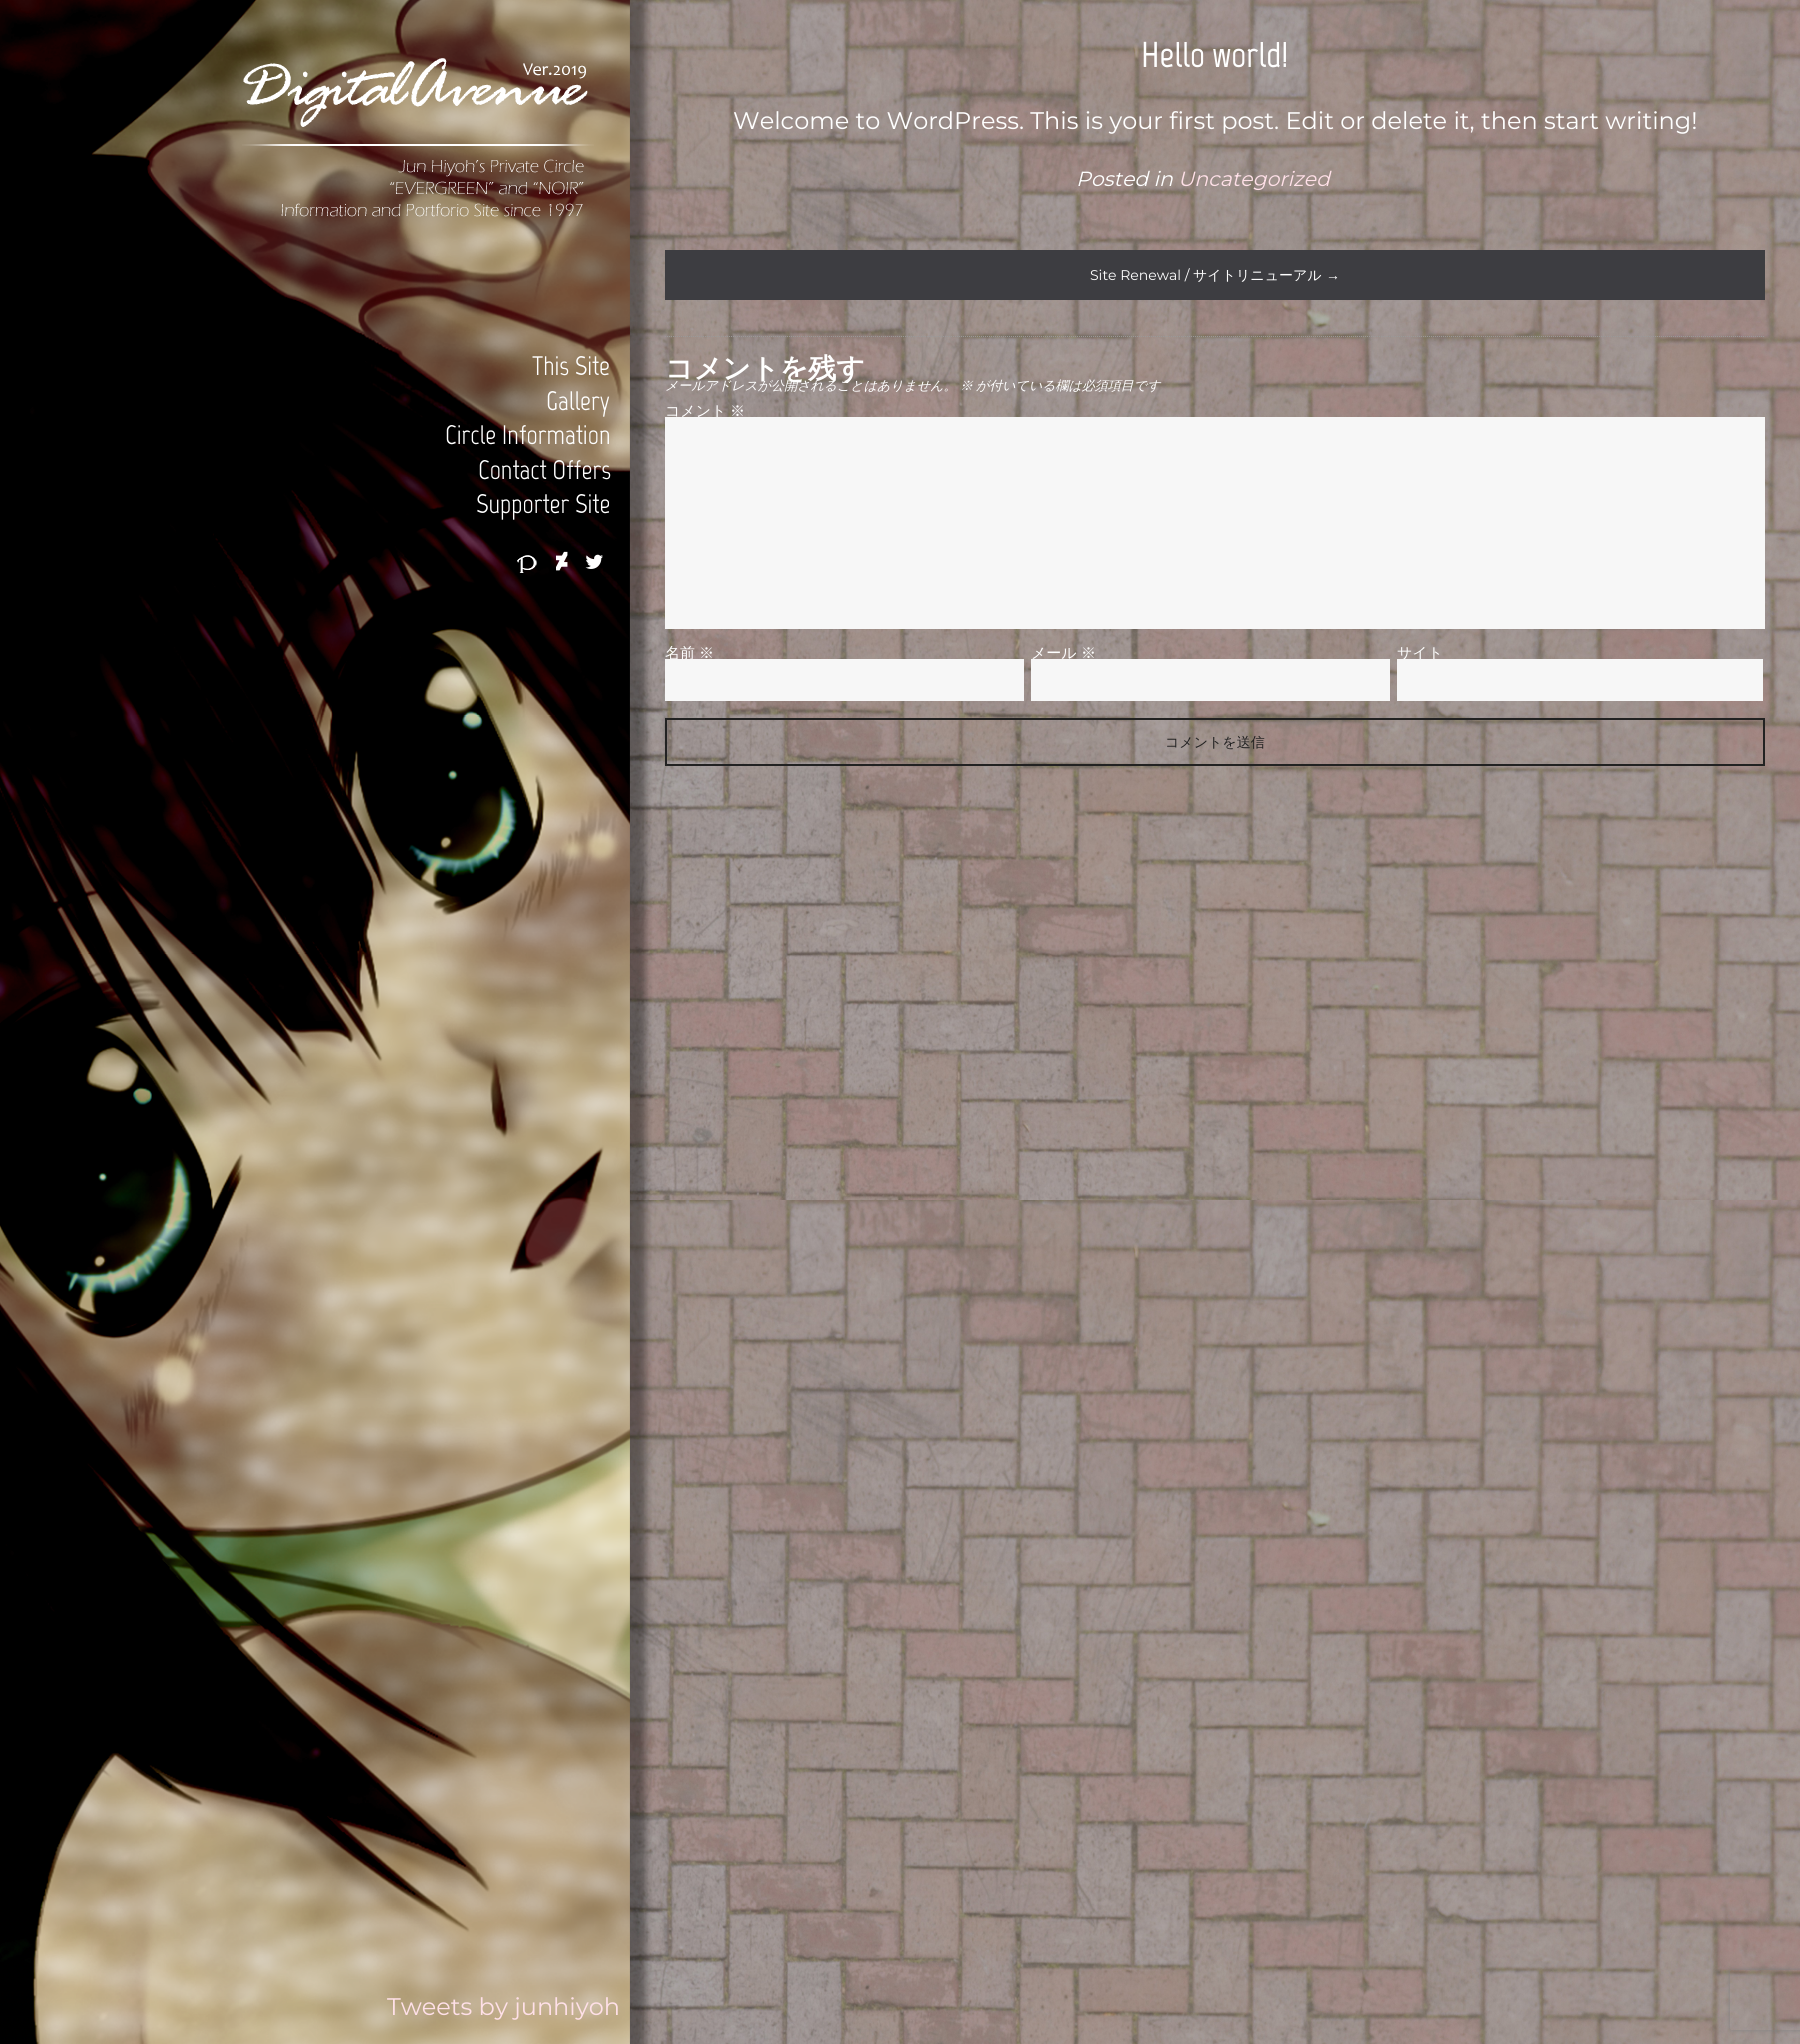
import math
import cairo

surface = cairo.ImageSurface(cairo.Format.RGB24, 1800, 2044)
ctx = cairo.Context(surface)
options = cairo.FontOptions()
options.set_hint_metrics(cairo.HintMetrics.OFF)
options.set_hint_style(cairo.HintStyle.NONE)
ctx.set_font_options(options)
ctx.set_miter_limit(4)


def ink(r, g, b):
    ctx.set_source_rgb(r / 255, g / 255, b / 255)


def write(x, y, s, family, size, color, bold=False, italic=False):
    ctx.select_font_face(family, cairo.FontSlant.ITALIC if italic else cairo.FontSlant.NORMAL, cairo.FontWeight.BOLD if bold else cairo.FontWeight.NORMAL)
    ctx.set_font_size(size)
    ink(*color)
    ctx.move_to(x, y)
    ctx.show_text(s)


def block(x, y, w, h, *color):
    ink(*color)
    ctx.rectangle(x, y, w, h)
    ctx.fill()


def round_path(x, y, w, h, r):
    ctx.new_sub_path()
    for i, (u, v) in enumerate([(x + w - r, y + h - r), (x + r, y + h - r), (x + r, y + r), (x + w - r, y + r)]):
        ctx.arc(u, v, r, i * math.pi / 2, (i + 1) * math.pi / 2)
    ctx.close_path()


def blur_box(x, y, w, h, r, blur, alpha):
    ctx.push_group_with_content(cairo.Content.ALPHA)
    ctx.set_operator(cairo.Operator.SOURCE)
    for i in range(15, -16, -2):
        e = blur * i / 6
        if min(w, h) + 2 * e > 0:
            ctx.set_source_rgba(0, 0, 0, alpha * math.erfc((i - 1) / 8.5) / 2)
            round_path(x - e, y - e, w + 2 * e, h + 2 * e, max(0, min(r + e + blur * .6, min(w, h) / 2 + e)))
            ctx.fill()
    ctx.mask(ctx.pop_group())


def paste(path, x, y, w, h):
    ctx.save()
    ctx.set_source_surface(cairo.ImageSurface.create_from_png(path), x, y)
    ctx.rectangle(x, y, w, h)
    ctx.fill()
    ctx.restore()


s1 = dict(family="Marvel", size=26.75, color=(255, 255, 255))
s2 = dict(family="Montserrat", size=24, color=(255, 224, 232))
s3 = dict(family="Marvel", size=36, color=(255, 255, 255), bold=True)
s4 = dict(family="Montserrat", size=24, color=(255, 255, 255))
s5 = dict(family="Montserrat", size=20.5, color=(255, 255, 255), italic=True)
s6 = dict(family="Montserrat", size=20.5, color=(255, 224, 232), italic=True)
s7 = dict(family="Montserrat", size=14, color=(255, 255, 255))
s8 = dict(family="WenQuanYi Zen Hei Medium", size=14, color=(255, 255, 255))
s9 = dict(family="Liberation Serif", size=14, color=(255, 255, 255))
s10 = dict(family="WenQuanYi Zen Hei", size=28, color=(255, 255, 255), bold=True)
s11 = dict(family="WenQuanYi Zen Hei Medium", size=13, color=(255, 255, 255), italic=True)
s12 = dict(family="WenQuanYi Zen Hei Medium", size=15, color=(255, 255, 255))
s13 = dict(family="WenQuanYi Zen Hei Medium", size=14, color=(34, 34, 34))

ink(255, 255, 255)
ctx.paint()
paste("pic1.png", 629, 0, 1171, 2044)
ink(0, 0, 0)
blur_box(0, 0, 646, 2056, 0, 4, 0.4)
paste("pic2.png", 0, 0, 630, 2044)
paste("pic3.png", 242, 58, 352, 159)
write(532, 375, "This Site", **s1)
write(546, 410, "Gallery", **s1)
write(445, 444, "Circle Information", **s1)
write(478, 479, "Contact Offers", **s1)
write(476, 513, "Supporter Site", **s1)
paste("pic4.png", 517, 555, 20, 18)
paste("pic5.png", 556, 551, 12, 20)
paste("pic6.png", 585, 554, 18, 15)
write(387, 2015, "Tweets by junhiyoh", **s2)
write(1141, 67, "Hello world!", **s3)
write(733, 129, "Welcome to WordPress. This is your first post. Edit or delete it, then start writing!", **s4)
write(1076, 186, "Posted in", **s5)
write(1178, 186, "Uncategorized", **s6)
block(665, 250, 1100, 50, 61, 61, 65)
write(1090, 280, "Site Renewal /", **s7)
write(1193, 280, "サイトリニューアル", **s8)
write(1326, 280, "→", **s9)
ctx.new_path()
ctx.move_to(665, 336.5)
ctx.line_to(1765, 336.5)
ink(153, 153, 153)
ctx.set_line_width(1)
ctx.set_dash([1, 1])
ctx.stroke()
write(665, 378, "コメントを残す", **s10)
write(665, 390, "メールアドレスが公開されることはありません。", **s11)
write(960, 390, "※", **s11)
write(976, 390, "が付いている欄は必須項目です", **s11)
write(665, 416, "コメント", **s12)
write(730, 416, "※", **s12)
block(665, 417, 1100, 212, 247, 247, 247)
write(665, 658, "名前", **s12)
write(699, 658, "※", **s12)
block(665, 659, 359, 42, 247, 247, 247)
write(1031, 658, "メール", **s12)
write(1081, 658, "※", **s12)
block(1031, 659, 359, 42, 247, 247, 247)
write(1397, 658, "サイト", **s12)
block(1397, 659, 366, 42, 247, 247, 247)
ctx.rectangle(666, 719, 1098, 46)
ink(34, 34, 34)
ctx.set_line_width(2)
ctx.set_dash([])
ctx.stroke()
write(1165, 747, "コメントを送信", **s13)
ctx.save()
ctx.set_fill_rule(cairo.FillRule.EVEN_ODD)
ctx.new_path()
ctx.move_to(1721, 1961)
ctx.line_to(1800, 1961)
ctx.line_to(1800, 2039)
ctx.line_to(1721, 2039)
ctx.close_path()
ctx.move_to(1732, 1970)
ctx.line_to(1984, 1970)
ctx.curve_to(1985, 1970, 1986, 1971, 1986, 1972)
ctx.line_to(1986, 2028)
ctx.curve_to(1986, 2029, 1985, 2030, 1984, 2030)
ctx.line_to(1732, 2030)
ctx.curve_to(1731, 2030, 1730, 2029, 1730, 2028)
ctx.line_to(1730, 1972)
ctx.curve_to(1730, 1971, 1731, 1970, 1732, 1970)
ctx.close_path()
ctx.clip()
ink(128, 128, 128)
blur_box(1730, 1970, 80, 60, 2, 2.5, 1)
ctx.restore()
surface.write_to_png("screenshot.png")
